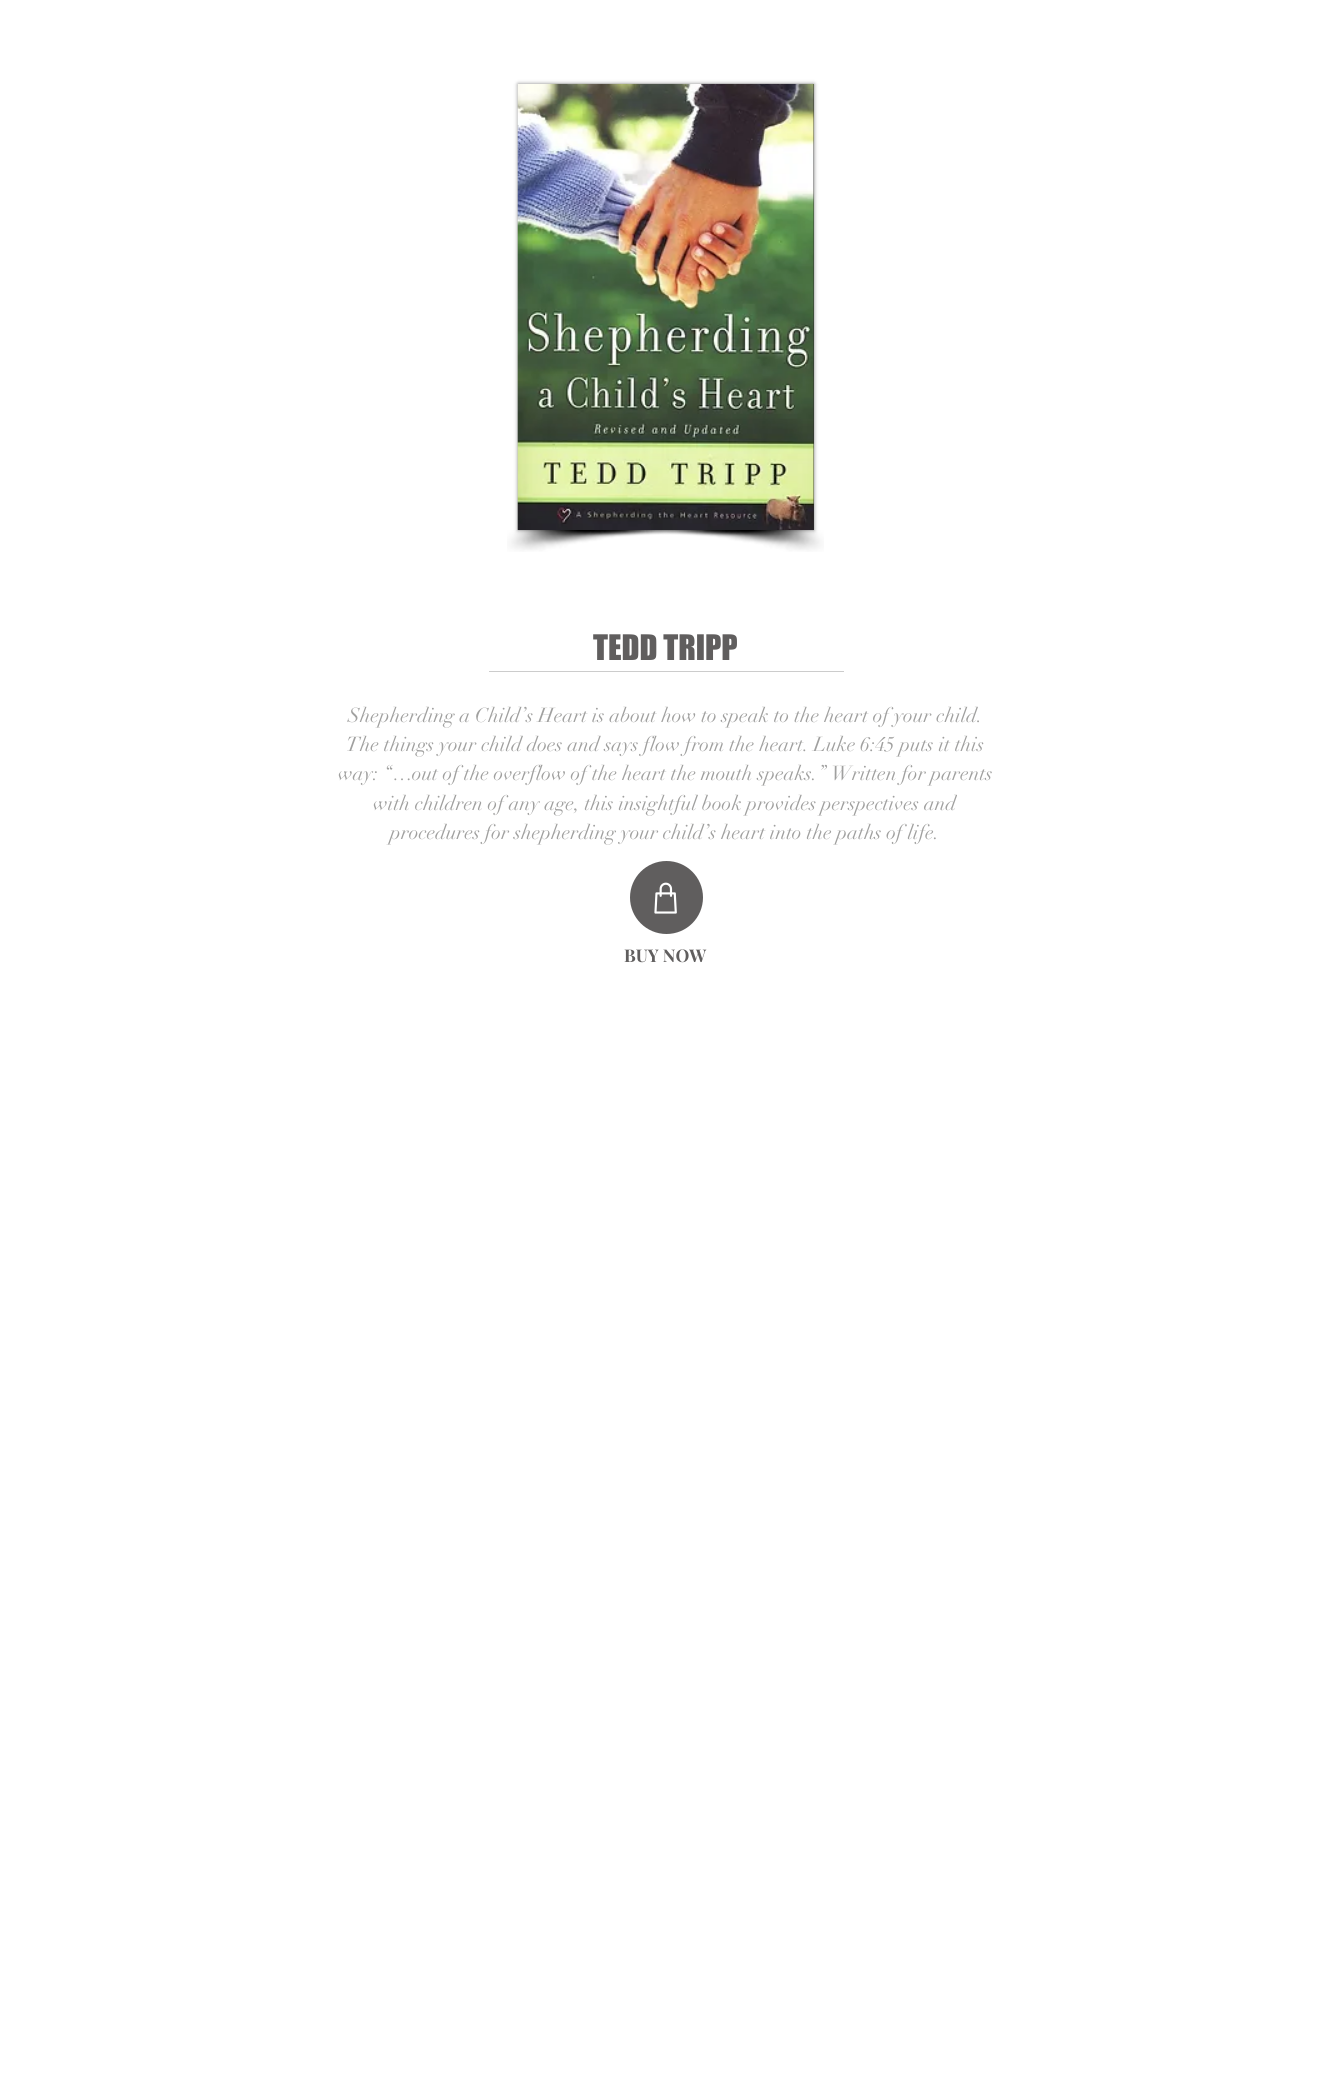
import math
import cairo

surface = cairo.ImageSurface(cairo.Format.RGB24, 1331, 2087)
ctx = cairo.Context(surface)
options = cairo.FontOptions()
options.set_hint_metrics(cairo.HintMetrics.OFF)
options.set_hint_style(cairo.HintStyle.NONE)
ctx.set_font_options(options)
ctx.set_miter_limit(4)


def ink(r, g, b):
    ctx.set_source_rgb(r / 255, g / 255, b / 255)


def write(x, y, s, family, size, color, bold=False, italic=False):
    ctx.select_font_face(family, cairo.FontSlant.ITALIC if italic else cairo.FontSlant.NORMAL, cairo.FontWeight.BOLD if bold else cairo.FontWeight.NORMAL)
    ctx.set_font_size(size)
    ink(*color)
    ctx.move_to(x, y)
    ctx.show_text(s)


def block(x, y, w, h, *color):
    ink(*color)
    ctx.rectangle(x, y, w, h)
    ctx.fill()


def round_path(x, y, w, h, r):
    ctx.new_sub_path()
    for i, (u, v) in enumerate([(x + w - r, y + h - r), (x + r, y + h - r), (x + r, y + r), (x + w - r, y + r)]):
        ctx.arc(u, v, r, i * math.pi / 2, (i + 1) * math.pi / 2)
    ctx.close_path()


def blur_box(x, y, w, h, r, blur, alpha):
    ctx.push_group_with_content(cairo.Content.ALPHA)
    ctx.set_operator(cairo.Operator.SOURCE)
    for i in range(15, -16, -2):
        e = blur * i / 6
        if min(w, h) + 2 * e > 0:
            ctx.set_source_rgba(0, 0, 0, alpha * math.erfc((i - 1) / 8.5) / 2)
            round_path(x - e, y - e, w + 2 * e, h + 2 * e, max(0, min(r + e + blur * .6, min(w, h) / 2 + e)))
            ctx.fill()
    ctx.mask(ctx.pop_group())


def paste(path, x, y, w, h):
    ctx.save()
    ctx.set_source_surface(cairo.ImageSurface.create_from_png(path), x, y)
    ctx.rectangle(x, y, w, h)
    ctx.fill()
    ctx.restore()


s1 = dict(family="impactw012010", size=32.5, color=(96, 94, 94))
s2 = dict(family="didot", size=20, color=(160, 160, 159))
s3 = dict(family="Playfair Display", size=17.5, color=(96, 94, 94), bold=True)

ink(255, 255, 255)
ctx.paint()
ink(0, 0, 0)
blur_box(518, 84, 296, 446, 0, 2, 0.5)
block(813, 84, 1, 446, 47, 46, 46)
paste("pic1.png", 517, 83, 297, 447)
paste("pic2.png", 507, 530, 191, 22)
paste("pic3.png", 646, 530, 178, 22)
write(593, 660, "TEDD TRIPP", **s1)
block(489, 671, 355, 1, 204, 204, 204)
write(348, 722, "Shepherding a Child’s Heart is about how to speak to the heart of your child.", **s2)
write(346, 751, "The things your child does and says flow from the heart. Luke 6:45 puts it this", **s2)
write(338, 780, "way: “…out of the overflow of the heart the mouth speaks.” Written for parents", **s2)
write(373, 810, "with children of any age, this insightful book provides perspectives and", **s2)
write(390, 839, "procedures for shepherding your child’s heart into the paths of life.", **s2)
ink(96, 94, 94)
ctx.new_path()
ctx.arc(666.5, 897.5, 36.5, 0, 2 * math.pi)
ctx.fill()
paste("pic4.png", 654, 882, 23, 32)
write(624, 962, "BUY NOW", **s3)
surface.write_to_png("screenshot.png")
